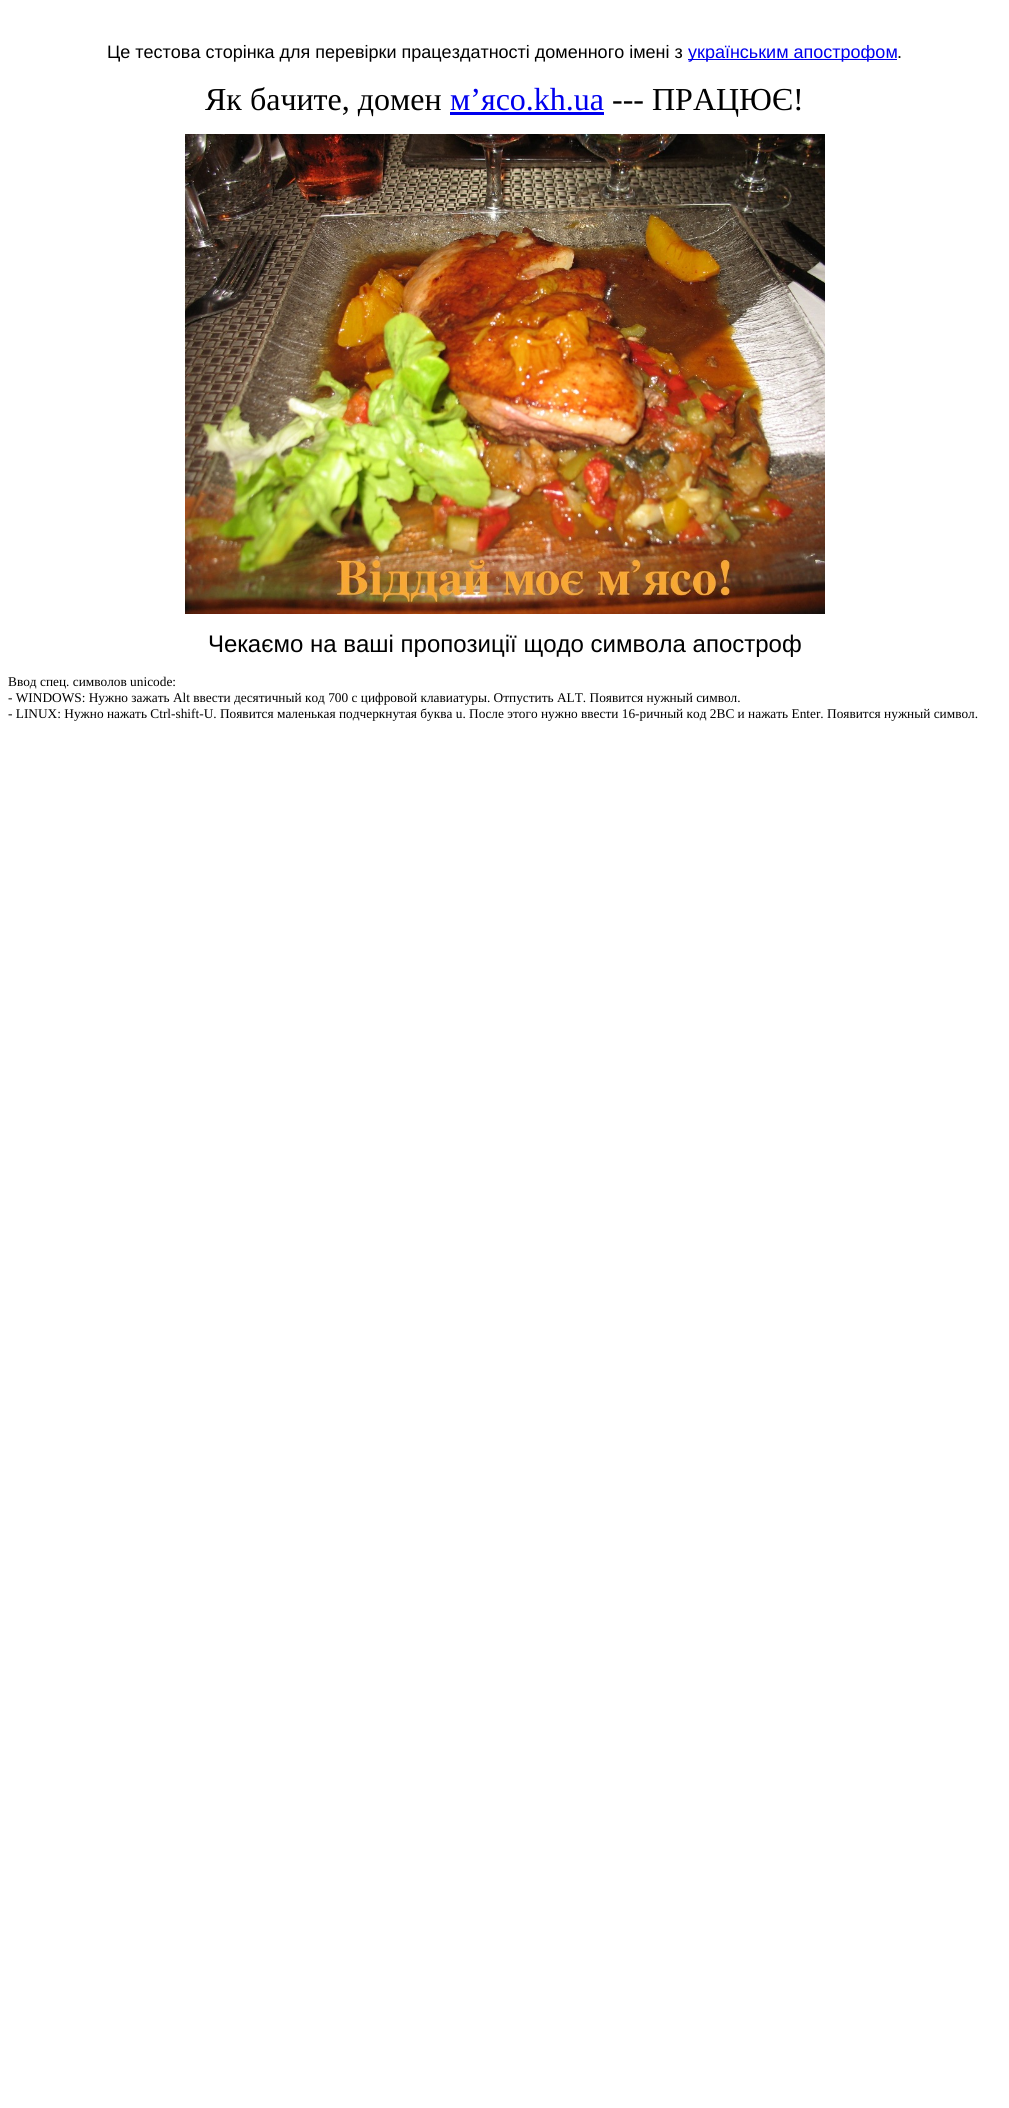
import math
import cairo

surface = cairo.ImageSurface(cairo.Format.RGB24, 1009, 2108)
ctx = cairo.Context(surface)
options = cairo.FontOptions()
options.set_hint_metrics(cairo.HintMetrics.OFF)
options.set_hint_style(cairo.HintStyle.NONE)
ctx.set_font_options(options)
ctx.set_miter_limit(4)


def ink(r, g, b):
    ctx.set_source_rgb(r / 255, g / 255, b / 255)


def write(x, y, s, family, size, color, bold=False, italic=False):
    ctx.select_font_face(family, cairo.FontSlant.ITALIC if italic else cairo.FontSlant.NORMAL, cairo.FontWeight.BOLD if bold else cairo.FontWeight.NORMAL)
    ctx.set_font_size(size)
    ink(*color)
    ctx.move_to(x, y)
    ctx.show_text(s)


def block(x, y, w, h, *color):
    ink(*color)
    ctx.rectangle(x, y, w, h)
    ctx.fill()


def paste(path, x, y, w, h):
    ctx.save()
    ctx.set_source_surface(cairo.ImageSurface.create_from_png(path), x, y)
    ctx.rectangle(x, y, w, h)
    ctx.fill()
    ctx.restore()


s1 = dict(family="Liberation Sans", size=18, color=(0, 0, 0))
s2 = dict(family="Liberation Sans", size=18, color=(0, 0, 238))
s3 = dict(family="Liberation Serif", size=32, color=(0, 0, 0))
s4 = dict(family="Liberation Serif", size=32, color=(0, 0, 238))
s5 = dict(family="Liberation Sans", size=24, color=(0, 0, 0))
s6 = dict(family="Liberation Serif", size=13.33, color=(0, 0, 0))

ink(255, 255, 255)
ctx.paint()
write(107, 58, "Це тестова сторінка для перевірки працездатності доменного імені з", **s1)
block(688, 59, 209, 1, 0, 0, 238)
write(688, 58, "українським апострофом", **s2)
write(897, 58, ".", **s1)
write(205, 110, "Як бачите, домен", **s3)
write(450, 110, "мʼясо.kh.ua", **s4)
block(450, 112, 154, 3, 0, 0, 238)
write(612, 110, "--- ПРАЦЮЄ!", **s3)
paste("pic1.png", 185, 134, 640, 480)
write(208, 652, "Чекаємо на ваші пропозиції щодо символа апостроф", **s5)
write(8, 686, "Ввод спец. символов unicode:", **s6)
write(8, 702, "- WINDOWS: Нужно зажать Alt ввести десятичный код 700 с цифровой клавиатуры. Отпустить ALT. Появится нужный символ.", **s6)
write(8, 718, "- LINUX: Нужно нажать Ctrl-shift-U. Появится маленькая подчеркнутая буква u. После этого нужно ввести 16-ричный код 2BC и нажать Enter. Появится нужный символ.", **s6)
surface.write_to_png("screenshot.png")
